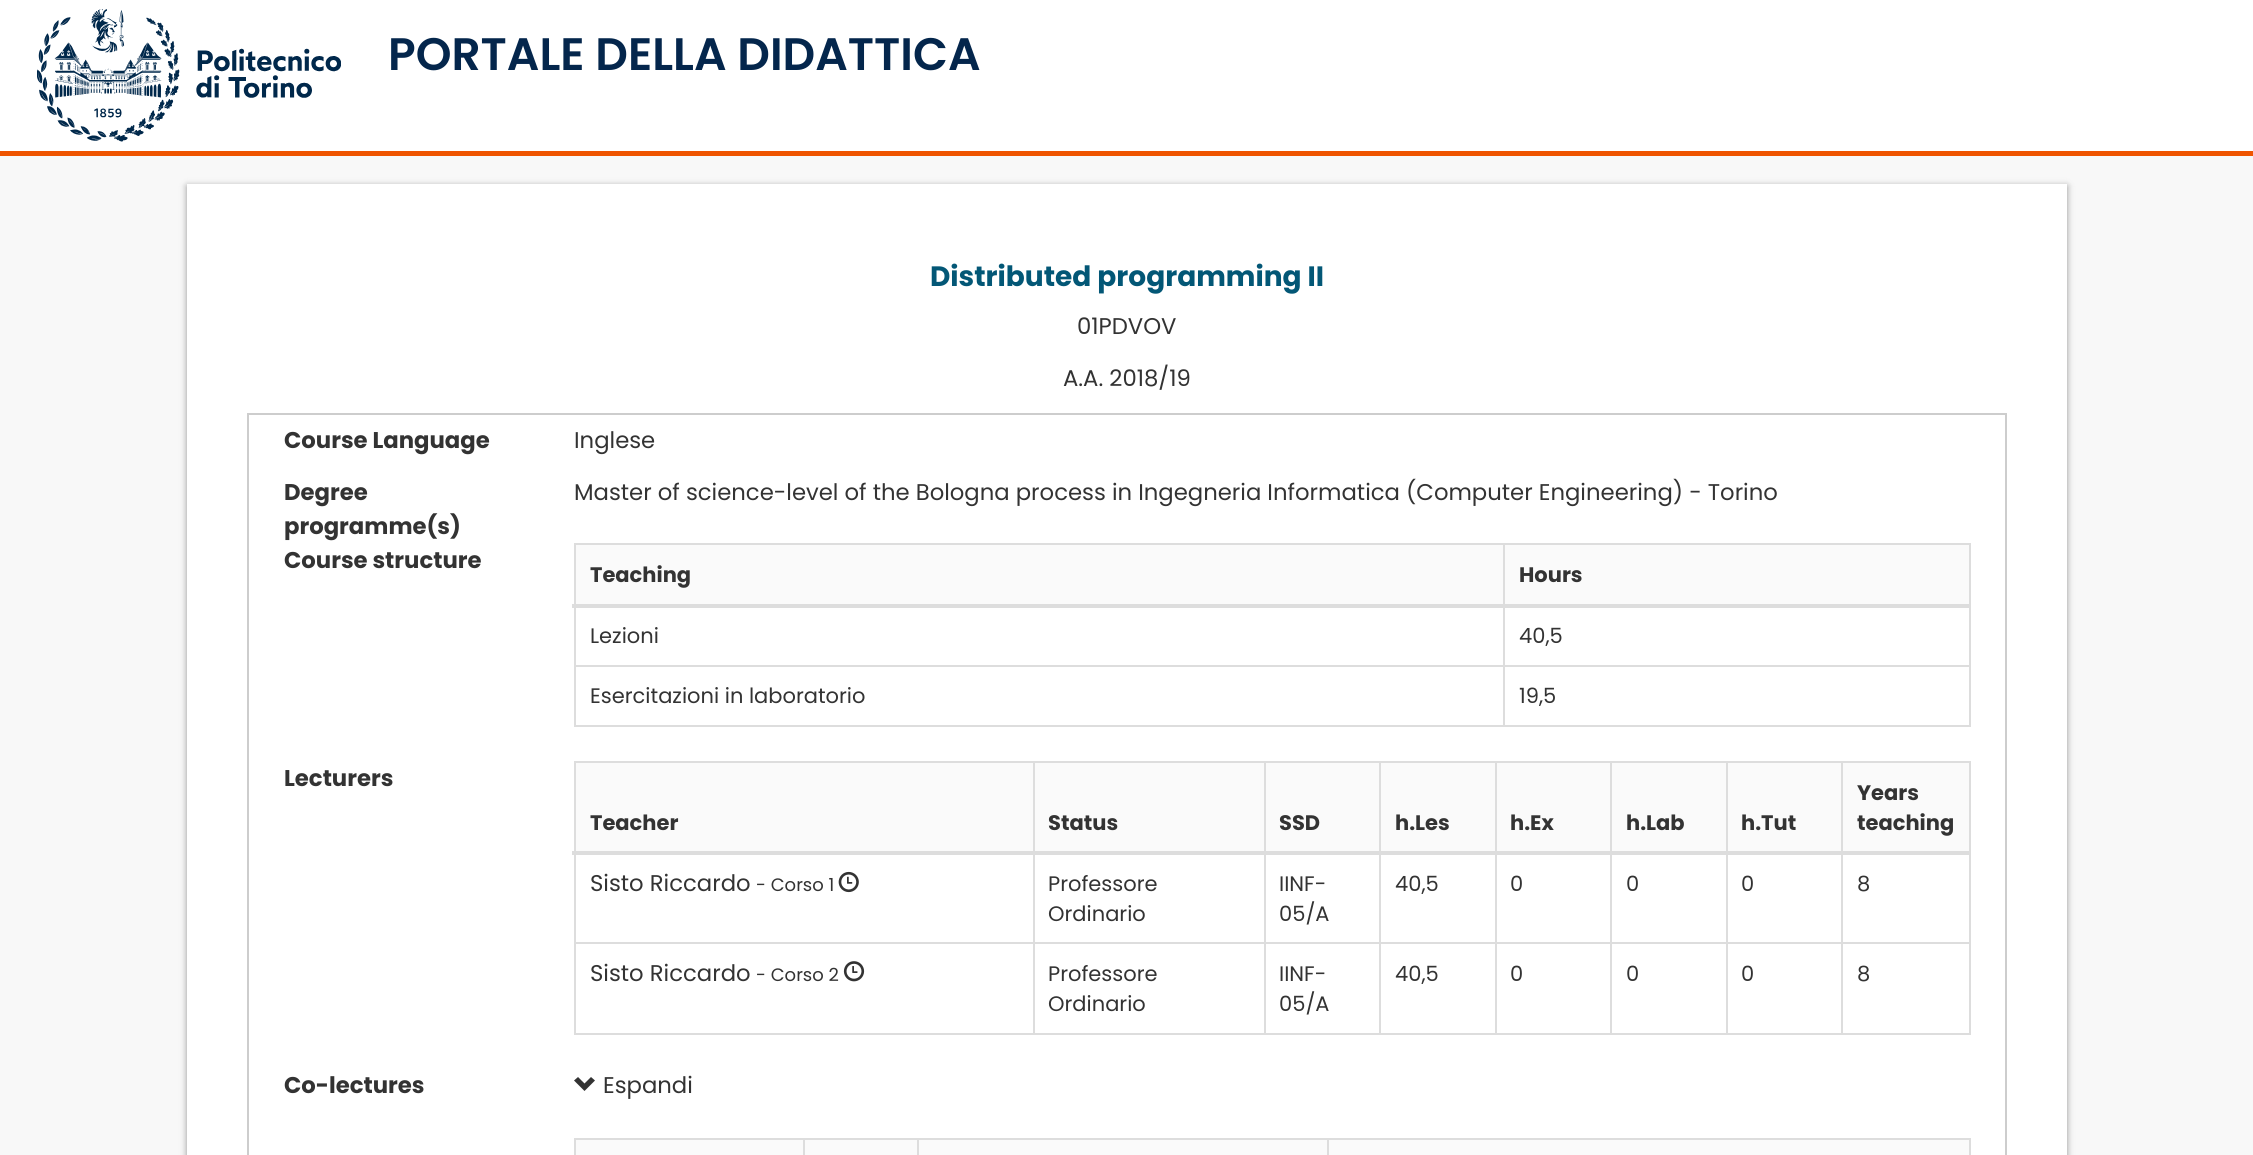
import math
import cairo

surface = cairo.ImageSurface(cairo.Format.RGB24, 2253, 1155)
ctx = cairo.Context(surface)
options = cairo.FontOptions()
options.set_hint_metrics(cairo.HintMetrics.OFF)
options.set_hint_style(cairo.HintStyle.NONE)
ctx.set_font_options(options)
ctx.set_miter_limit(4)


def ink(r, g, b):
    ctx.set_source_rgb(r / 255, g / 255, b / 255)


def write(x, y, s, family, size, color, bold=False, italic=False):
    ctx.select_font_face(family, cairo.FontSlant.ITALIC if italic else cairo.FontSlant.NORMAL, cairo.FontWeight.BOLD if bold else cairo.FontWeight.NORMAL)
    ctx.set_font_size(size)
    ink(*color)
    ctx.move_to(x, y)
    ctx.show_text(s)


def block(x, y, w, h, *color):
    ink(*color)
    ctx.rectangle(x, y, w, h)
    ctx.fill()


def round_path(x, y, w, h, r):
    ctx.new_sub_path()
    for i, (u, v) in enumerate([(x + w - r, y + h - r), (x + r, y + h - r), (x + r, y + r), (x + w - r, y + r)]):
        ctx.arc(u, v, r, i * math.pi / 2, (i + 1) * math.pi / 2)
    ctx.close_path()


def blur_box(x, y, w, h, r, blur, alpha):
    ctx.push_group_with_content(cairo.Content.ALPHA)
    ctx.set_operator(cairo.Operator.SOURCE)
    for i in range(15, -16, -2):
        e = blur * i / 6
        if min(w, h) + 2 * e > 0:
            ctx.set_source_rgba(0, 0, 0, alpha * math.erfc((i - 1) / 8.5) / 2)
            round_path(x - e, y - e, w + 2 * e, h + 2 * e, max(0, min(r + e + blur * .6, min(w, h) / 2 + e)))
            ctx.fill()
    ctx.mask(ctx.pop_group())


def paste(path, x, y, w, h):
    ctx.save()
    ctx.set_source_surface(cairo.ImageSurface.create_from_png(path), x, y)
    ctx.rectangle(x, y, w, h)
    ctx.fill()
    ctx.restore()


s1 = dict(family="Poppins SemiBold", size=45.5, color=(4, 38, 76))
s2 = dict(family="Poppins", size=28, color=(3, 87, 118), bold=True)
s3 = dict(family="Poppins", size=22.75, color=(51, 51, 51))
s4 = dict(family="Poppins", size=22.75, color=(51, 51, 51), bold=True)
s5 = dict(family="Poppins", size=21, color=(51, 51, 51), bold=True)
s6 = dict(family="Poppins", size=21, color=(51, 51, 51))
s7 = dict(family="Poppins", size=18, color=(51, 51, 51))

ink(255, 255, 255)
ctx.paint()
block(0, 151, 2253, 5, 239, 84, 0)
paste("pic1.png", 37, 9, 304, 133)
write(388, 70, "PORTALE DELLA DIDATTICA", **s1)
block(0, 156, 2253, 999, 248, 248, 248)
ink(0, 0, 0)
blur_box(187, 186, 1880, 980, 0, 3.5, 0.4)
block(187, 184, 1880, 971, 255, 255, 255)
write(930, 286, "Distributed programming II", **s2)
write(1077, 334, "01PDVOV", **s3)
write(1063, 386, "A.A. 2018/19", **s3)
ctx.rectangle(248, 414, 1758, 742)
ink(205, 205, 205)
ctx.stroke()
write(284, 448, "Course Language", **s4)
write(574, 448, "Inglese", **s3)
write(284, 500, "Degree", **s4)
write(284, 534, "programme(s)", **s4)
write(574, 500, "Master of science-level of the Bologna process in Ingegneria Informatica (Computer Engineering) - Torino", **s3)
write(284, 568, "Course structure", **s4)
block(574, 543, 1397, 2, 221, 221, 221)
block(1969, 543, 2, 183, 221, 221, 221)
block(574, 725, 1397, 2, 221, 221, 221)
block(574, 543, 2, 183, 221, 221, 221)
block(576, 545, 1393, 59, 250, 250, 250)
write(590, 582, "Teaching", **s5)
block(1503, 665, 468, 2, 221, 221, 221)
block(1503, 665, 2, 61, 221, 221, 221)
block(574, 665, 931, 2, 221, 221, 221)
block(1503, 543, 2, 124, 221, 221, 221)
block(572, 604, 1399, 4, 221, 221, 221)
write(1519, 582, "Hours", **s5)
write(590, 643, "Lezioni", **s6)
write(1519, 643, "40,5", **s6)
write(590, 703, "Esercitazioni in laboratorio", **s6)
write(1519, 703, "19,5", **s6)
write(284, 786, "Lecturers", **s4)
block(574, 761, 1397, 2, 221, 221, 221)
block(1969, 761, 2, 273, 221, 221, 221)
block(574, 1033, 1397, 2, 221, 221, 221)
block(574, 761, 2, 273, 221, 221, 221)
block(576, 763, 1393, 88, 250, 250, 250)
write(590, 830, "Teacher", **s5)
write(1048, 830, "Status", **s5)
write(1279, 830, "SSD", **s5)
write(1395, 830, "h.Les", **s5)
write(1510, 830, "h.Ex", **s5)
write(1626, 830, "h.Lab", **s5)
write(1741, 830, "h.Tut", **s5)
block(1841, 942, 130, 2, 221, 221, 221)
block(1841, 942, 2, 92, 221, 221, 221)
block(1726, 942, 117, 2, 221, 221, 221)
block(1726, 942, 2, 92, 221, 221, 221)
block(1610, 942, 117, 2, 221, 221, 221)
block(1610, 942, 2, 92, 221, 221, 221)
block(1495, 942, 117, 2, 221, 221, 221)
block(1495, 942, 2, 92, 221, 221, 221)
block(1379, 942, 117, 2, 221, 221, 221)
block(1379, 942, 2, 92, 221, 221, 221)
block(1264, 942, 117, 2, 221, 221, 221)
block(1264, 942, 2, 92, 221, 221, 221)
block(1033, 942, 232, 2, 221, 221, 221)
block(1033, 942, 2, 92, 221, 221, 221)
block(574, 942, 460, 2, 221, 221, 221)
block(1033, 761, 2, 182, 221, 221, 221)
block(1264, 761, 2, 182, 221, 221, 221)
block(1379, 761, 2, 182, 221, 221, 221)
block(1495, 761, 2, 182, 221, 221, 221)
block(1610, 761, 2, 182, 221, 221, 221)
block(1726, 761, 2, 182, 221, 221, 221)
block(1841, 761, 2, 182, 221, 221, 221)
block(572, 851, 1399, 4, 221, 221, 221)
write(1857, 800, "Years", **s5)
write(1857, 830, "teaching", **s5)
write(590, 891, "Sisto Riccardo", **s3)
write(756, 891, "- Corso 1", **s7)
paste("pic2.png", 838, 871, 21, 22)
write(1048, 891, "Professore", **s6)
write(1048, 921, "Ordinario", **s6)
write(1279, 891, "IINF-", **s6)
write(1279, 921, "05/A", **s6)
write(1395, 891, "40,5", **s6)
write(1510, 891, "0", **s6)
write(1626, 891, "0", **s6)
write(1741, 891, "0", **s6)
write(1857, 891, "8", **s6)
write(590, 981, "Sisto Riccardo", **s3)
write(756, 981, "- Corso 2", **s7)
paste("pic3.png", 843, 961, 22, 21)
write(1048, 981, "Professore", **s6)
write(1048, 1011, "Ordinario", **s6)
write(1279, 981, "IINF-", **s6)
write(1279, 1011, "05/A", **s6)
write(1395, 981, "40,5", **s6)
write(1510, 981, "0", **s6)
write(1626, 981, "0", **s6)
write(1741, 981, "0", **s6)
write(1857, 981, "8", **s6)
write(284, 1093, "Co-lectures", **s4)
ctx.new_path()
ctx.move_to(595, 1080.5)
ctx.line_to(584.5, 1091)
ctx.line_to(574, 1080.5)
ctx.line_to(578, 1077)
ctx.line_to(584.5, 1083.5)
ctx.line_to(591, 1077)
ctx.close_path()
ctx.fill()
write(603, 1093, "Espandi", **s3)
block(574, 1138, 1397, 2, 221, 221, 221)
block(1969, 1138, 2, 17, 221, 221, 221)
block(574, 1138, 2, 17, 221, 221, 221)
block(576, 1140, 1393, 15, 250, 250, 250)
block(803, 1138, 2, 17, 221, 221, 221)
block(917, 1138, 2, 17, 221, 221, 221)
block(1327, 1138, 2, 17, 221, 221, 221)
surface.write_to_png("screenshot.png")
